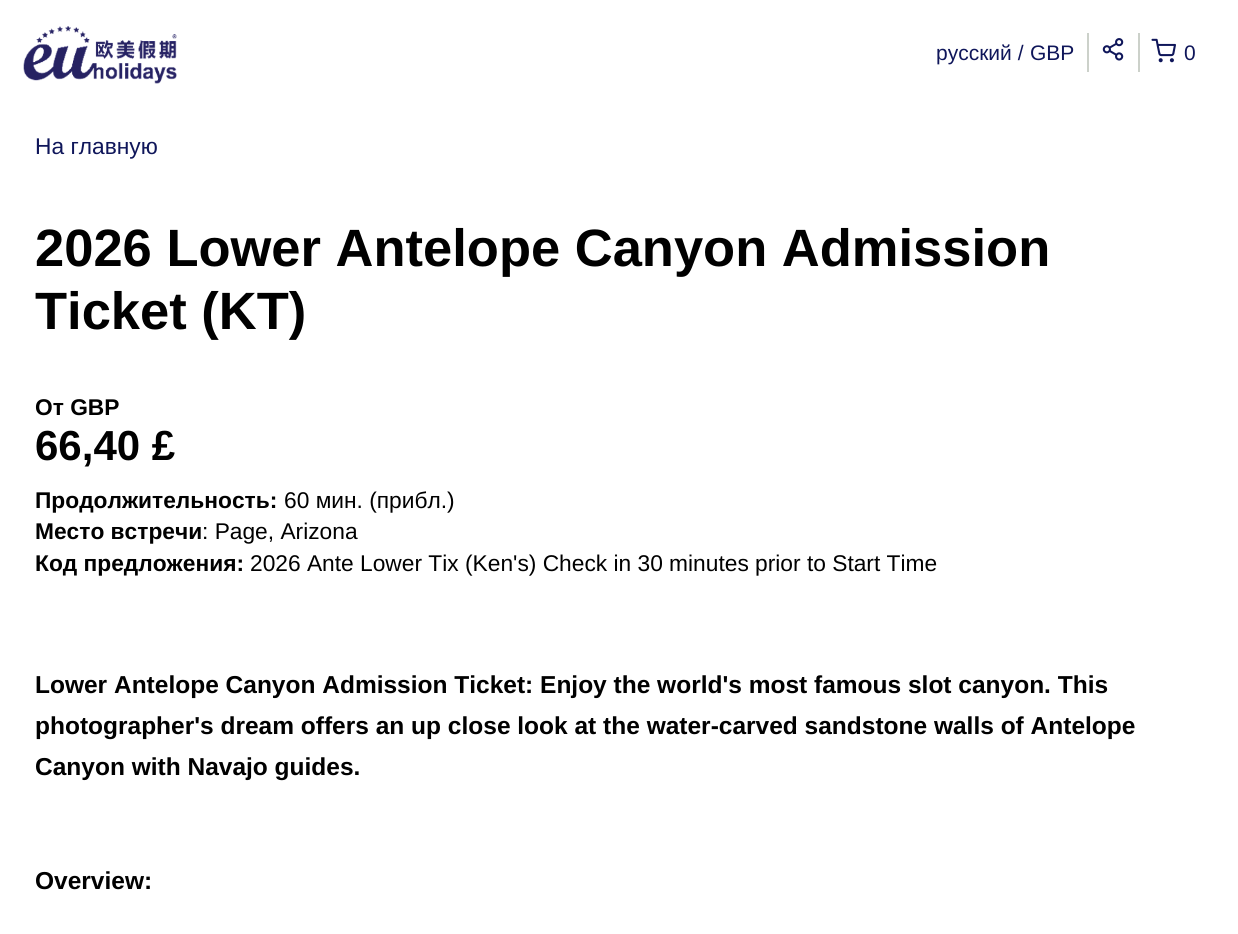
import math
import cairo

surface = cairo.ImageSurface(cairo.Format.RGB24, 1238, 934)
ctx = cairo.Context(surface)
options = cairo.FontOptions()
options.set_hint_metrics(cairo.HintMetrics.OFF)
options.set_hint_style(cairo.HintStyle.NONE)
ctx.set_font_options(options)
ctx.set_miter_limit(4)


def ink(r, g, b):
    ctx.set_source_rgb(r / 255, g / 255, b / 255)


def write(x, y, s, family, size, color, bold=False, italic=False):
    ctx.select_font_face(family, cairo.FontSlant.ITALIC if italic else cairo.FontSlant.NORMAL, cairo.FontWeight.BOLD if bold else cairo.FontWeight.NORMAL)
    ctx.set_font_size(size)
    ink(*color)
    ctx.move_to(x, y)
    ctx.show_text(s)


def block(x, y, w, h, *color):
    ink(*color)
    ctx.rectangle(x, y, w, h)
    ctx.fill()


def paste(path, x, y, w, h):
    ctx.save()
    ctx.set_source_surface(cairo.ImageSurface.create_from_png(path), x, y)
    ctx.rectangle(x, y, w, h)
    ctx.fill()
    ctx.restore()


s1 = dict(family="Liberation Sans", size=21, color=(15, 22, 90))
s2 = dict(family="Liberation Sans", size=22.75, color=(15, 22, 90))
s3 = dict(family="Liberation Sans", size=52.5, color=(0, 0, 0), bold=True)
s4 = dict(family="Liberation Sans", size=22.75, color=(0, 0, 0), bold=True)
s5 = dict(family="Liberation Sans", size=42, color=(0, 0, 0), bold=True)
s6 = dict(family="Liberation Sans", size=22.75, color=(0, 0, 0))
s7 = dict(family="Liberation Sans", size=24.5, color=(0, 0, 0), bold=True)

ink(255, 255, 255)
ctx.paint()
paste("pic1.png", 23, 26, 154, 58)
block(1087, 33, 2, 39, 204, 209, 202)
write(936, 60, "русский /", **s1)
write(1030, 60, "GBP", **s1)
block(1138, 33, 2, 39, 204, 209, 202)
paste("pic2.png", 1102, 38, 22, 23)
paste("pic3.png", 1151, 38, 25, 25)
write(1184, 60, "0", **s1)
write(35, 154, "На главную", **s2)
write(35, 266, "2026 Lower Antelope Canyon Admission", **s3)
write(35, 329, "Ticket (KT)", **s3)
write(35, 415, "От GBP", **s4)
write(35, 460, "66,40 £", **s5)
write(35, 508, "Продолжительность:", **s4)
write(284, 508, "60 мин. (прибл.)", **s6)
write(35, 539, "Место встречи", **s4)
write(202, 539, ": Page, Arizona", **s6)
write(35, 571, "Код предложения:", **s4)
write(250, 571, "2026 Ante Lower Tix (Ken's) Check in 30 minutes prior to Start Time", **s6)
write(35, 693, "Lower Antelope Canyon Admission Ticket: Enjoy the world's most famous slot canyon. This", **s7)
write(35, 734, "photographer's dream offers an up close look at the water-carved sandstone walls of Antelope", **s7)
write(35, 775, "Canyon with Navajo guides.", **s7)
write(35, 889, "Overview:", **s7)
surface.write_to_png("screenshot.png")
